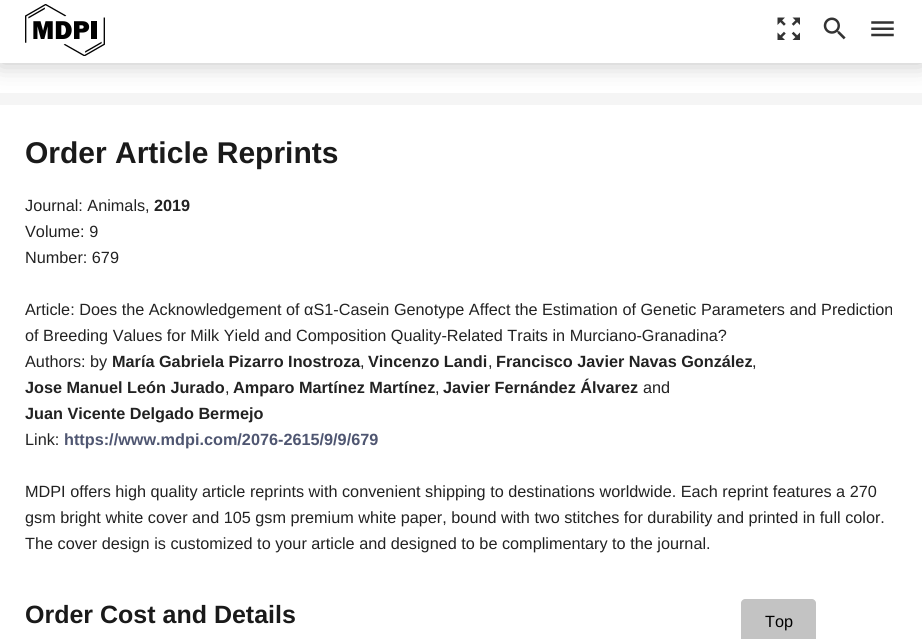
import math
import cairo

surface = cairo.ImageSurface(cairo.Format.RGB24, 922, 639)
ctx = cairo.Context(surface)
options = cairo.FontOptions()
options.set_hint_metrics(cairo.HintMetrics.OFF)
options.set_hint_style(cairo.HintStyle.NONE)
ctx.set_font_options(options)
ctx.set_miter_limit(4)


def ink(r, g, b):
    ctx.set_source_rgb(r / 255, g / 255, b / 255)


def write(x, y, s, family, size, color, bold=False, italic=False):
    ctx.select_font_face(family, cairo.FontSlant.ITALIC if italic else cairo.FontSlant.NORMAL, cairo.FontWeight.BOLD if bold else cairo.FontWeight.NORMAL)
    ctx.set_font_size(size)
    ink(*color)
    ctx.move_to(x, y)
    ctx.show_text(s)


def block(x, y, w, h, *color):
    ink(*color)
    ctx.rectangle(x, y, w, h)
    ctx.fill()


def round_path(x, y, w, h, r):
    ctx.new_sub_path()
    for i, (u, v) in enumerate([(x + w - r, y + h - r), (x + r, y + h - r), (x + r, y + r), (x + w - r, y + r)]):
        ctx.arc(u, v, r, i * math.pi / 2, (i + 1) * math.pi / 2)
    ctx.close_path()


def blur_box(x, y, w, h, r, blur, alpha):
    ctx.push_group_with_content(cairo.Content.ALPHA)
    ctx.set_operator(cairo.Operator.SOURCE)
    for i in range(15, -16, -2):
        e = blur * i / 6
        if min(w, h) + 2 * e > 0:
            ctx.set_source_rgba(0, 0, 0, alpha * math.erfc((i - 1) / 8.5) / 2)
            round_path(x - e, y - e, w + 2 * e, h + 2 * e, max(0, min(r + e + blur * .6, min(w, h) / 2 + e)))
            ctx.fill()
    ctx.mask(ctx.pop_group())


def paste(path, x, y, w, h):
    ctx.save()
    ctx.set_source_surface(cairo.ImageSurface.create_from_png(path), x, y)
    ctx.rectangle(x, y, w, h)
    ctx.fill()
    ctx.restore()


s1 = dict(family="Liberation Sans", size=30, color=(26, 26, 26), bold=True)
s2 = dict(family="Liberation Sans", size=16.25, color=(34, 34, 34))
s3 = dict(family="Liberation Sans", size=16.25, color=(34, 34, 34), bold=True)
s4 = dict(family="Liberation Sans", size=16.25, color=(79, 86, 113), bold=True)
s5 = dict(family="Liberation Sans", size=25, color=(26, 26, 26), bold=True)
s6 = dict(family="Liberation Sans", size=16.25, color=(0, 0, 0))

ink(245, 245, 245)
ctx.paint()
block(0, 63, 922, 30, 255, 255, 255)
ink(0, 0, 0)
blur_box(0, 0, 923, 63, 0, 12.5, 0.25)
block(0, 0, 922, 63, 255, 255, 255)
paste("pic1.png", 25, 4, 80, 52)
paste("pic2.png", 777, 17, 23, 23)
paste("pic3.png", 823, 17, 23, 23)
paste("pic4.png", 871, 21, 23, 16)
block(0, 105, 922, 534, 255, 255, 255)
write(25, 163, "Order Article Reprints", **s1)
write(25, 211, "Journal: Animals,", **s2)
write(154, 211, "2019", **s3)
write(25, 237, "Volume: 9", **s2)
write(25, 263, "Number: 679", **s2)
write(25, 315, "Article: Does the Acknowledgement of αS1-Casein Genotype Affect the Estimation of Genetic Parameters and Prediction", **s2)
write(25, 341, "of Breeding Values for Milk Yield and Composition Quality-Related Traits in Murciano-Granadina?", **s2)
write(25, 367, "Authors: by", **s2)
write(112, 367, "María Gabriela Pizarro Inostroza", **s3)
write(360, 367, ",", **s2)
write(368, 367, "Vincenzo Landi", **s3)
write(488, 367, ",", **s2)
write(496, 367, "Francisco Javier Navas González", **s3)
write(752, 367, ",", **s2)
write(25, 393, "Jose Manuel León Jurado", **s3)
write(225, 393, ",", **s2)
write(233, 393, "Amparo Martínez Martínez", **s3)
write(435, 393, ",", **s2)
write(443, 393, "Javier Fernández Álvarez", **s3)
write(643, 393, "and", **s2)
write(25, 419, "Juan Vicente Delgado Bermejo", **s3)
write(25, 445, "Link:", **s2)
write(64, 445, "https://www.mdpi.com/2076-2615/9/9/679", **s4)
write(25, 497, "MDPI offers high quality article reprints with convenient shipping to destinations worldwide. Each reprint features a 270", **s2)
write(25, 523, "gsm bright white cover and 105 gsm premium white paper, bound with two stitches for durability and printed in full color.", **s2)
write(25, 549, "The cover design is customized to your article and designed to be complimentary to the journal.", **s2)
write(25, 623, "Order Cost and Details", **s5)
ink(195, 195, 195)
ctx.new_path()
ctx.move_to(745, 599)
ctx.line_to(812, 599)
ctx.curve_to(814, 599, 816, 601, 816, 603)
ctx.line_to(816, 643)
ctx.line_to(741, 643)
ctx.line_to(741, 603)
ctx.curve_to(741, 601, 743, 599, 745, 599)
ctx.close_path()
ctx.fill()
write(765, 627, "Top", **s6)
surface.write_to_png("screenshot.png")
